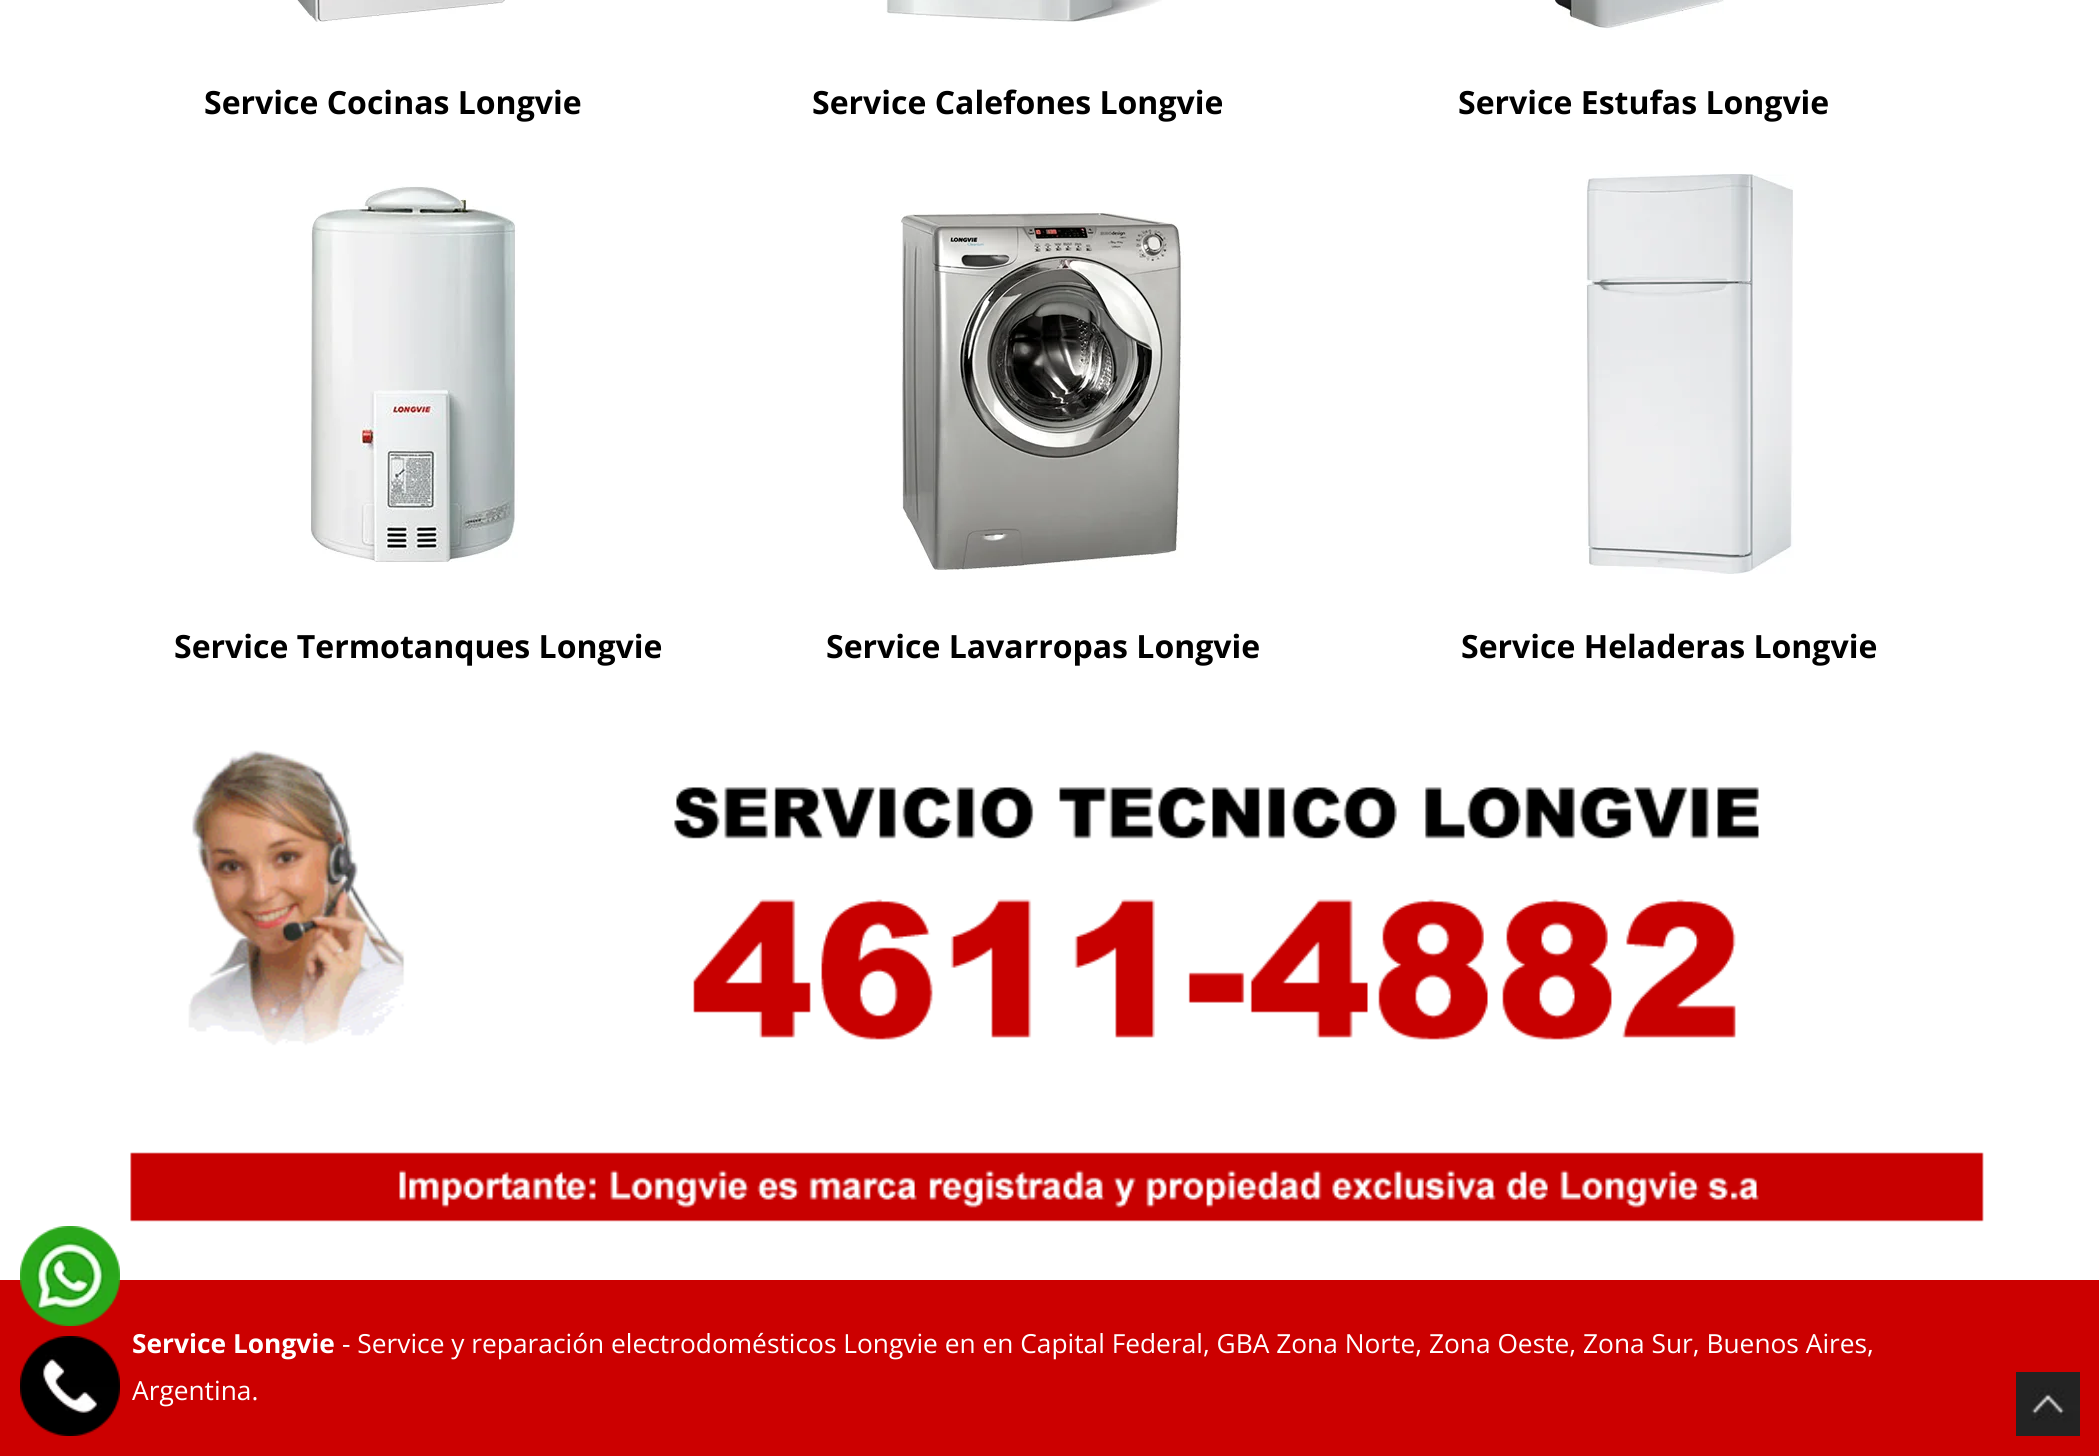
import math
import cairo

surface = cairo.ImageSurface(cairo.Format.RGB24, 2099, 1456)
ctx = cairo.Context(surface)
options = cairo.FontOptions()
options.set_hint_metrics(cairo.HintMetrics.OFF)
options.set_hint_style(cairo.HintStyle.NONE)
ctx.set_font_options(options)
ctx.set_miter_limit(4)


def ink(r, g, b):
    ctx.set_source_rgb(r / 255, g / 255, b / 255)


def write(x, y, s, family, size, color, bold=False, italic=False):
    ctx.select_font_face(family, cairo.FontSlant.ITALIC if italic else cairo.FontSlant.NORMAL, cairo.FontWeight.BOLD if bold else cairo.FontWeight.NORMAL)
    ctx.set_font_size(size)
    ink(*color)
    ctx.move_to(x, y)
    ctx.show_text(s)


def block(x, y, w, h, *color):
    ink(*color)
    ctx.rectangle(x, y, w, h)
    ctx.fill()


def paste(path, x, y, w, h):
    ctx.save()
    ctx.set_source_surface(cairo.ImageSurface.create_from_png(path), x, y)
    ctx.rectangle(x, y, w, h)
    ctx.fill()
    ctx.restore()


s1 = dict(family="Open Sans", size=32, color=(0, 0, 0), bold=True)
s2 = dict(family="Open Sans", size=26.32, color=(255, 255, 255), bold=True)
s3 = dict(family="Open Sans", size=26.32, color=(255, 255, 255))

ink(255, 255, 255)
ctx.paint()
paste("pic1.png", 297, 0, 208, 22)
write(204, 114, "Service Cocinas Longvie", **s1)
paste("pic2.png", 886, 0, 276, 22)
write(812, 114, "Service Calefones Longvie", **s1)
paste("pic3.png", 1555, 0, 169, 30)
write(1458, 114, "Service Estufas Longvie", **s1)
paste("pic4.png", 310, 186, 208, 376)
write(174, 658, "Service Termotanques Longvie", **s1)
paste("pic5.png", 900, 211, 284, 359)
write(826, 658, "Service Lavarropas Longvie", **s1)
paste("pic6.png", 1586, 174, 208, 400)
write(1461, 658, "Service Heladeras Longvie", **s1)
paste("pic7.png", 130, 750, 1854, 472)
block(0, 1280, 2099, 176, 204, 0, 0)
paste("pic8.png", 20, 1226, 100, 100)
paste("pic9.png", 20, 1336, 100, 100)
write(132, 1353, "Service Longvie", **s2)
write(342, 1353, "- Service y reparación electrodomésticos Longvie en en Capital Federal, GBA Zona Norte, Zona Oeste, Zona Sur, Buenos Aires,", **s3)
write(132, 1400, "Argentina.", **s3)
paste("pic10.png", 2016, 1372, 64, 64)
surface.write_to_png("screenshot.png")
